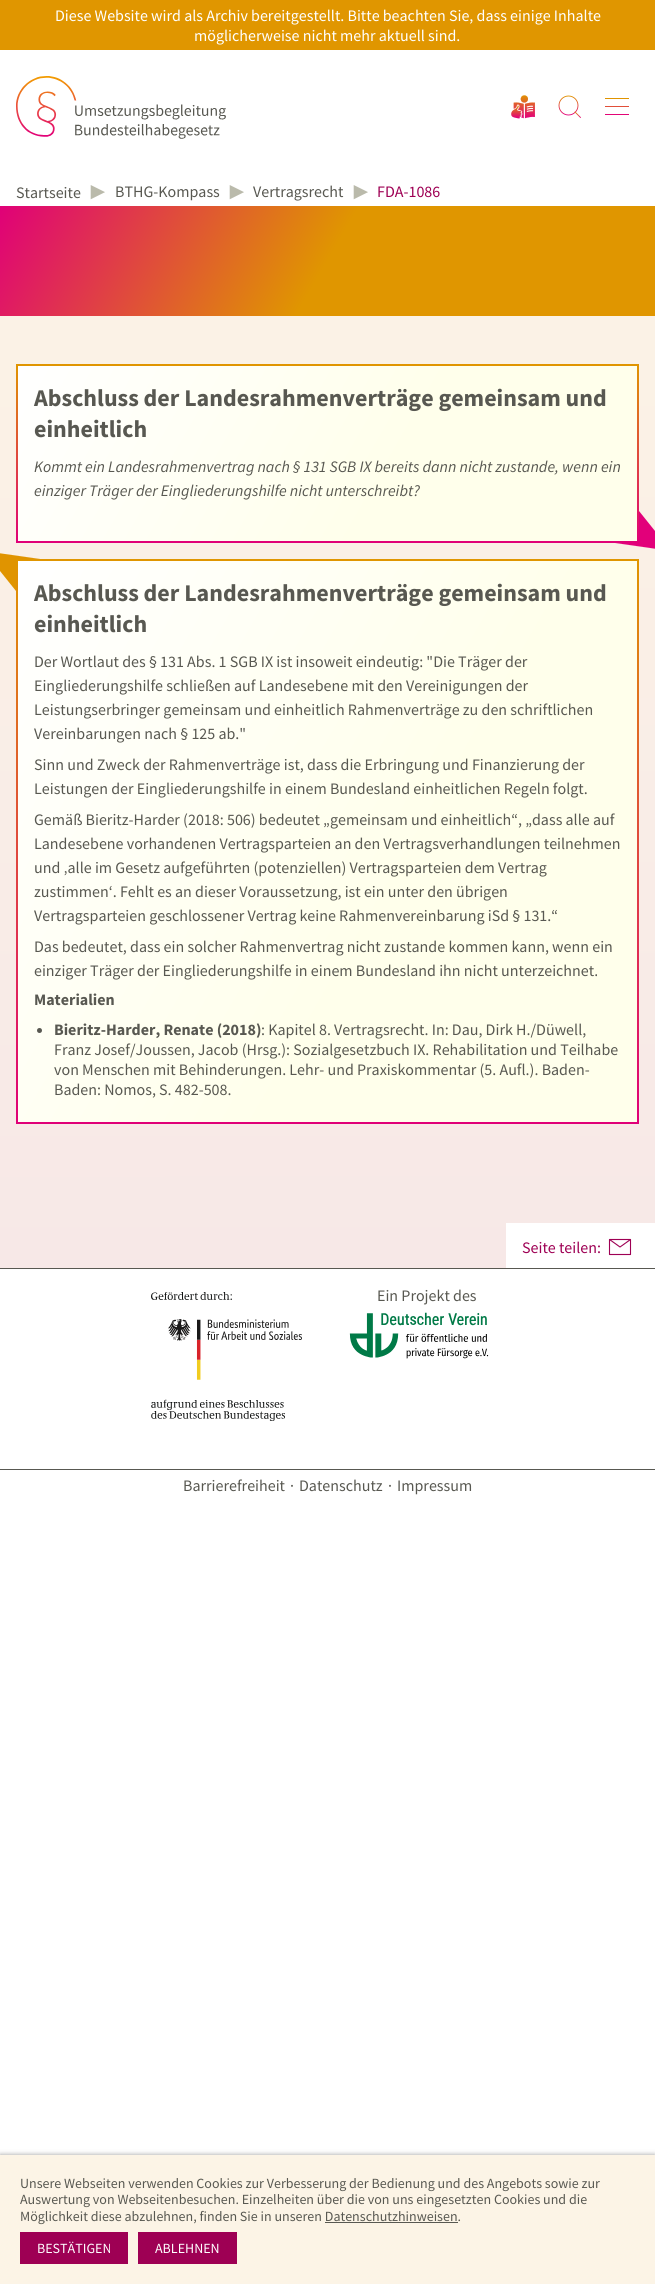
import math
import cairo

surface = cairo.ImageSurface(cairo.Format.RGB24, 655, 2284)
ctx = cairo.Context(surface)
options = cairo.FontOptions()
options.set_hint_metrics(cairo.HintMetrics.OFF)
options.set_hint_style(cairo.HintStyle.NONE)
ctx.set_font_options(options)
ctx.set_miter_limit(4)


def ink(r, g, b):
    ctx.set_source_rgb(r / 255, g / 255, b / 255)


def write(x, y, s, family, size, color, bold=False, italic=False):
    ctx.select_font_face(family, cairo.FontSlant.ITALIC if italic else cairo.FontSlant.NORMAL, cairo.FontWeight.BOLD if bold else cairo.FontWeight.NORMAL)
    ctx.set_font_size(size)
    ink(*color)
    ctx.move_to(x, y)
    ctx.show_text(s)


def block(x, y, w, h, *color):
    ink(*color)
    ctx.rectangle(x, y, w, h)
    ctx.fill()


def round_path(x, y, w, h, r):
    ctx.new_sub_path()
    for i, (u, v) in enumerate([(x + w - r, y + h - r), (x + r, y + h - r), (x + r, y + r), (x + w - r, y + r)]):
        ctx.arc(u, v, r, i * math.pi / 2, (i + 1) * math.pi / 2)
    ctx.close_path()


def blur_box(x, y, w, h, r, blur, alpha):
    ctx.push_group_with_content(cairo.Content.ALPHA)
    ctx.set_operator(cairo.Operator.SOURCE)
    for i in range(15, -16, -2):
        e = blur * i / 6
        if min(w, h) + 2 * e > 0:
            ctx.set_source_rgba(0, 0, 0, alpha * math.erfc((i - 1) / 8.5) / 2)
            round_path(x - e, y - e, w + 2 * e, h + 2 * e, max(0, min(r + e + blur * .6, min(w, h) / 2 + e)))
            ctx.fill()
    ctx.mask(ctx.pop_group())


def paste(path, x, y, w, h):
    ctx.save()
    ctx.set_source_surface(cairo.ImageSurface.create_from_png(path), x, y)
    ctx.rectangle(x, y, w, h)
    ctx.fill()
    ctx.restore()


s1 = dict(family="Source Sans Pro", size=16, color=(255, 255, 255))
s2 = dict(family="Source Sans Pro", size=16, color=(88, 88, 81))
s3 = dict(family="Liberation Sans", size=24, color=(186, 186, 171))
s4 = dict(family="Source Sans Pro", size=16, color=(158, 0, 84))
s5 = dict(family="Source Sans Pro", size=24, color=(88, 88, 81), bold=True)
s6 = dict(family="Source Sans Pro", size=16, color=(88, 88, 81), italic=True)
s7 = dict(family="Source Sans Pro", size=16, color=(88, 88, 81), bold=True)
s8 = dict(family="Source Sans Pro", size=14, color=(88, 88, 81))
s9 = dict(family="Source Sans Pro", size=14, color=(255, 255, 255))

ink(255, 255, 255)
ctx.paint()
block(0, 0, 655, 50, 224, 150, 0)
write(55, 21, "Diese Website wird als Archiv bereitgestellt. Bitte beachten Sie, dass einige Inhalte", **s1)
write(194, 41, "möglicherweise nicht mehr aktuell sind.", **s1)
paste("pic1.png", 16, 76, 210, 63)
paste("pic2.png", 511, 95, 24, 24)
ctx.arc(568.5, 105.5, 9.5, 0, 2 * math.pi)
gradient = cairo.LinearGradient(568, 96, 568, 115)
gradient.add_color_stop_rgba(0, 0.878, 0.58, 0, 1)
gradient.add_color_stop_rgba(1, 0.886, 0, 0.478, 1)
ctx.set_source(gradient)
ctx.set_line_width(0.9)
ctx.stroke()
ctx.new_path()
ctx.move_to(575, 112)
ctx.line_to(580.5, 117.5)
gradient = cairo.LinearGradient(578, 112, 578, 118)
gradient.add_color_stop_rgba(0, 0.878, 0.58, 0, 1)
gradient.add_color_stop_rgba(1, 0.886, 0, 0.478, 1)
ctx.set_source(gradient)
ctx.set_line_cap(cairo.LineCap.ROUND)
ctx.set_line_join(cairo.LineJoin.ROUND)
ctx.stroke()
ctx.save()
ctx.rectangle(605, 95, 24, 24)
ctx.clip()
ctx.new_path()
ctx.move_to(605, 98.5)
ctx.line_to(629, 98.5)
ctx.move_to(605, 106.5)
ctx.line_to(629, 106.5)
ctx.move_to(605, 114.5)
ctx.line_to(629, 114.5)
gradient = cairo.LinearGradient(617, 99, 617, 115)
gradient.add_color_stop_rgba(0, 0.878, 0.58, 0, 1)
gradient.add_color_stop_rgba(1, 0.886, 0, 0.478, 1)
ctx.set_source(gradient)
ctx.set_line_width(1)
ctx.stroke()
ctx.restore()
gradient = cairo.LinearGradient(327, 175, 328, 1268)
gradient.add_color_stop_rgba(0, 0.988, 0.957, 0.902, 1)
gradient.add_color_stop_rgba(1, 0.969, 0.91, 0.906, 1)
ctx.set_source(gradient)
ctx.rectangle(0, 316, 655, 952)
ctx.fill()
write(16, 198, "Startseite", **s2)
write(86, 199, "►", **s3)
write(115, 197, "BTHG-Kompass", **s2)
write(225, 199, "►", **s3)
write(253, 197, "Vertragsrecht", **s2)
write(349, 199, "►", **s3)
write(377, 197, "FDA-1086", **s4)
gradient = cairo.LinearGradient(58, 105, 597, 417)
gradient.add_color_stop_rgba(0, 0.878, 0, 0.471, 1)
gradient.add_color_stop_rgba(0.5, 0.878, 0.588, 0, 1)
ctx.set_source(gradient)
ctx.rectangle(0, 206, 655, 110)
ctx.fill()
paste("pic4.png", 615, 511, 40, 38)
gradient = cairo.LinearGradient(57, 298, 598, 609)
gradient.add_color_stop_rgba(0, 1, 1, 1, 1)
gradient.add_color_stop_rgba(0.6, 1, 1, 0.922, 1)
ctx.set_source(gradient)
ctx.rectangle(18, 366, 619, 175)
ctx.fill()
paste("pic3.png", 16, 364, 623, 179)
write(34, 406, "Abschluss der Landesrahmenverträge gemeinsam und", **s5)
write(34, 437, "einheitlich", **s5)
write(34, 472, "Kommt ein Landesrahmenvertrag nach § 131 SGB IX bereits dann nicht zustande, wenn ein", **s6)
write(34, 496, "einziger Träger der Eingliederungshilfe nicht unterschreibt?", **s6)
paste("pic5.png", 0, 553, 40, 38)
gradient = cairo.LinearGradient(-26, 637, 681, 1046)
gradient.add_color_stop_rgba(0, 1, 1, 1, 1)
gradient.add_color_stop_rgba(0.6, 1, 1, 0.922, 1)
ctx.set_source(gradient)
ctx.rectangle(18, 561, 619, 561)
ctx.fill()
paste("pic6.png", 16, 559, 623, 565)
write(34, 601, "Abschluss der Landesrahmenverträge gemeinsam und", **s5)
write(34, 632, "einheitlich", **s5)
write(34, 667, "Der Wortlaut des § 131 Abs. 1 SGB IX ist insoweit eindeutig: \"Die Träger der", **s2)
write(34, 691, "Eingliederungshilfe schließen auf Landesebene mit den Vereinigungen der", **s2)
write(34, 715, "Leistungserbringer gemeinsam und einheitlich Rahmenverträge zu den schriftlichen", **s2)
write(34, 739, "Vereinbarungen nach § 125 ab.\"", **s2)
write(34, 770, "Sinn und Zweck der Rahmenverträge ist, dass die Erbringung und Finanzierung der", **s2)
write(34, 794, "Leistungen der Eingliederungshilfe in einem Bundesland einheitlichen Regeln folgt.", **s2)
write(34, 825, "Gemäß Bieritz-Harder (2018: 506) bedeutet „gemeinsam und einheitlich“, „dass alle auf", **s2)
write(34, 849, "Landesebene vorhandenen Vertragsparteien an den Vertragsverhandlungen teilnehmen", **s2)
write(34, 873, "und ‚alle im Gesetz aufgeführten (potenziellen) Vertragsparteien dem Vertrag", **s2)
write(34, 897, "zustimmen‘. Fehlt es an dieser Voraussetzung, ist ein unter den übrigen", **s2)
write(34, 921, "Vertragsparteien geschlossener Vertrag keine Rahmenvereinbarung iSd § 131.“", **s2)
write(34, 952, "Das bedeutet, dass ein solcher Rahmenvertrag nicht zustande kommen kann, wenn ein", **s2)
write(34, 976, "einziger Träger der Eingliederungshilfe in einem Bundesland ihn nicht unterzeichnet.", **s2)
write(34, 1005, "Materialien", **s7)
ctx.new_path()
ctx.arc(39.5, 1030.5, 2.5, 0, 2 * math.pi)
ctx.fill()
write(54, 1035, "Bieritz-Harder, Renate (2018)", **s7)
write(261, 1035, ": Kapitel 8. Vertragsrecht. In: Dau, Dirk H./Düwell,", **s2)
write(54, 1055, "Franz Josef/Joussen, Jacob (Hrsg.): Sozialgesetzbuch IX. Rehabilitation und Teilhabe", **s2)
write(54, 1075, "von Menschen mit Behinderungen. Lehr- und Praxiskommentar (5. Aufl.). Baden-", **s2)
write(54, 1095, "Baden: Nomos, S. 482-508.", **s2)
block(0, 1268, 655, 1, 88, 88, 81)
block(506, 1223, 149, 45, 255, 255, 255)
write(522, 1253, "Seite teilen:", **s4)
paste("pic7.png", 608, 1238, 24, 18)
block(0, 1469, 655, 1, 88, 88, 81)
paste("pic8.png", 151, 1292, 151, 129)
write(377, 1301, "Ein Projekt des", **s2)
paste("pic9.png", 349, 1312, 140, 47)
write(183, 1491, "Barrierefreiheit", **s2)
write(290, 1491, "·", **s2)
write(299, 1491, "Datenschutz", **s2)
write(388, 1491, "·", **s2)
write(397, 1491, "Impressum", **s2)
ink(0, 0, 0)
blur_box(0, 2155, 655, 129, 0, 2.5, 0.4)
block(0, 2155, 655, 129, 252, 244, 230)
write(20, 2188, "Unsere Webseiten verwenden Cookies zur Verbesserung der Bedienung und des Angebots sowie zur", **s8)
write(20, 2204, "Auswertung von Webseitenbesuchen. Einzelheiten über die von uns eingesetzten Cookies und die", **s8)
write(20, 2221, "Möglichkeit diese abzulehnen, finden Sie in unseren Datenschutzhinweisen.", **s8)
block(325, 2222, 133, 1, 88, 88, 81)
ink(158, 0, 84)
ctx.rectangle(21, 2233, 106, 30)
ctx.fill_preserve()
ctx.set_line_width(2)
ctx.set_line_cap(cairo.LineCap.BUTT)
ctx.set_line_join(cairo.LineJoin.MITER)
ctx.stroke()
write(37, 2253, "BESTÄTIGEN", **s9)
ink(158, 0, 84)
ctx.rectangle(139, 2233, 97, 30)
ctx.fill_preserve()
ctx.stroke()
write(155, 2253, "ABLEHNEN", **s9)
surface.write_to_png("screenshot.png")
